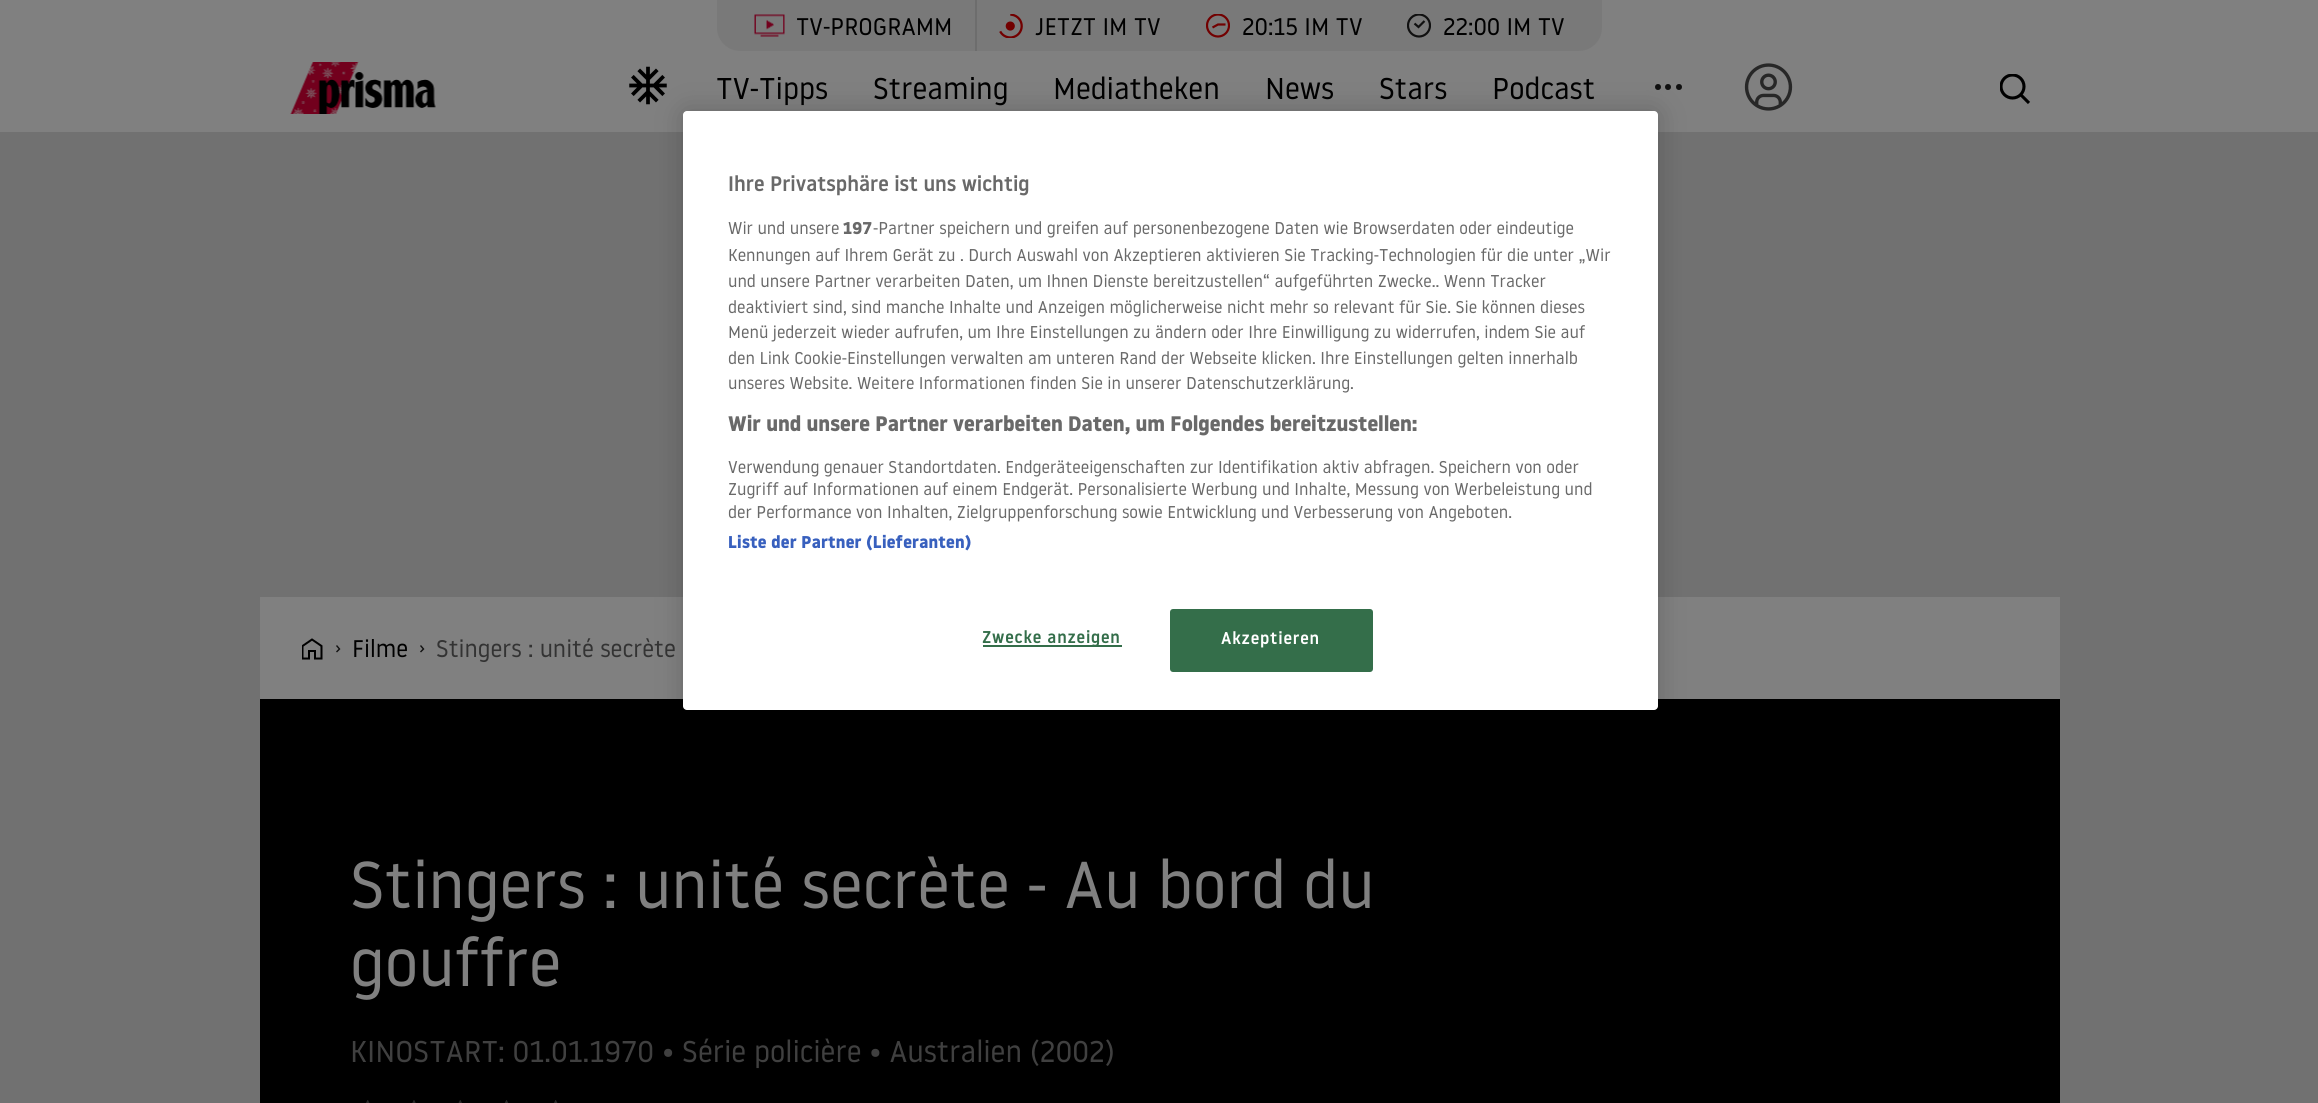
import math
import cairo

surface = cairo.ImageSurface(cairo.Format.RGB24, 2318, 1103)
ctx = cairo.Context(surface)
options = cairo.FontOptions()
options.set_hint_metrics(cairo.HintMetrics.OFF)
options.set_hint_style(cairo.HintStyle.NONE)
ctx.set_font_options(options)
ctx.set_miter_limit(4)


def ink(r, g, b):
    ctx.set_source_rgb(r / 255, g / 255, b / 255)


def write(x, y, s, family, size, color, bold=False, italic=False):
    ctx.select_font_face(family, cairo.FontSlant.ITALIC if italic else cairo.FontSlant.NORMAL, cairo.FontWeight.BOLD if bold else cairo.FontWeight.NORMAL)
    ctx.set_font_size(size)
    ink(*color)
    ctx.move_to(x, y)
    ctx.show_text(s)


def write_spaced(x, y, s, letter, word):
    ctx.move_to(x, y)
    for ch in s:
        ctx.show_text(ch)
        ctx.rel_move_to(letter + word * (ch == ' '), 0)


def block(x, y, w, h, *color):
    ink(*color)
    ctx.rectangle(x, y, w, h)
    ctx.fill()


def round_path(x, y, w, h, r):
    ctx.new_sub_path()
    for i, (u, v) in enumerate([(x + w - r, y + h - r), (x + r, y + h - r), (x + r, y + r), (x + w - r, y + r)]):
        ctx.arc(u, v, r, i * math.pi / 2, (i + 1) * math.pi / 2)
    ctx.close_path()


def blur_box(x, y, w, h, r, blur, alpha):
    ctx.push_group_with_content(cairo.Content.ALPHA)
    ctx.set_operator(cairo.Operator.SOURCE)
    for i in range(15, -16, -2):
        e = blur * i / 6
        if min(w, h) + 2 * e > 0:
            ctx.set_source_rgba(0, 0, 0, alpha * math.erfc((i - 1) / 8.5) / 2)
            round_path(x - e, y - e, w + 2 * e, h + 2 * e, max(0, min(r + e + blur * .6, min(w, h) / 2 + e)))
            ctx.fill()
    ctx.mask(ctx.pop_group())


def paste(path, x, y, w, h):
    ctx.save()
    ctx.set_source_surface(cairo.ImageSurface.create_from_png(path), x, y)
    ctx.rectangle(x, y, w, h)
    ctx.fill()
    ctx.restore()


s1 = dict(family="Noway", size=24, color=(0, 0, 0))
s2 = dict(family="Noway", size=30, color=(0, 0, 0))
s3 = dict(family="Noway", size=24, color=(51, 51, 51))
s4 = dict(family="Noway", size=66, color=(128, 128, 128))
s5 = dict(family="Noway", size=30, color=(64, 64, 64))
s6 = dict(family="Noway Medium", size=21, color=(105, 105, 105))
s7 = dict(family="Noway", size=17.07, color=(105, 105, 105))
s8 = dict(family="Noway", size=17.07, color=(105, 105, 105), bold=True)
s9 = dict(family="Noway", size=21, color=(105, 105, 105), bold=True)

ink(113, 113, 113)
ctx.paint()
block(0, 0, 2318, 132, 128, 128, 128)
ink(121, 121, 121)
ctx.new_path()
ctx.move_to(717, 0)
ctx.line_to(1602, 0)
ctx.line_to(1602, 28)
ctx.curve_to(1602, 40.5, 1591.5, 51, 1579, 51)
ctx.line_to(740, 51)
ctx.curve_to(727.5, 51, 717, 40.5, 717, 28)
ctx.close_path()
ctx.fill()
block(975, 0, 2, 51, 109, 109, 109)
paste("pic1.png", 754, 14, 31, 23)
write(796, 35, "TV-PROGRAMM", **s1)
paste("pic2.png", 999, 14, 24, 24)
write(1035, 35, "JETZT IM TV", **s1)
ctx.save()
ctx.rectangle(1206, 14, 24, 24)
ctx.clip()
ctx.arc(1218, 25.5, 11, 0, 2 * math.pi)
ink(114, 0, 0)
ctx.set_line_width(2.2)
ctx.stroke()
ctx.restore()
ctx.new_path()
ctx.move_to(1212.5, 27.5)
ctx.line_to(1218, 24.5)
ctx.line_to(1225.5, 24.5)
ink(114, 0, 0)
ctx.set_line_width(2.2)
ctx.stroke()
write(1242, 35, "20:15 IM TV", **s1)
ctx.save()
ctx.rectangle(1407, 14, 24, 24)
ctx.clip()
ctx.arc(1419, 25.5, 11, 0, 2 * math.pi)
ink(16, 16, 16)
ctx.stroke()
ctx.restore()
ctx.new_path()
ctx.move_to(1414.5, 23.5)
ctx.line_to(1418.5, 27)
ctx.line_to(1424.5, 21)
ink(16, 16, 16)
ctx.stroke()
write(1443, 35, "22:00 IM TV", **s1)
paste("pic3.png", 290, 62, 146, 52)
paste("pic4.png", 629, 66, 38, 39)
write(716, 99, "TV-Tipps", **s2)
write(873, 99, "Streaming", **s2)
write(1053, 99, "Mediatheken", **s2)
write(1265, 99, "News", **s2)
write(1379, 99, "Stars", **s2)
write(1492, 99, "Podcast", **s2)
ink(16, 16, 16)
ctx.new_path()
ctx.arc(1658, 87, 3, 0, 2 * math.pi)
ctx.fill()
ctx.arc(1668, 87, 3, 0, 2 * math.pi)
ctx.fill()
ctx.arc(1679, 87, 3, 0, 2 * math.pi)
ctx.fill()
paste("pic5.png", 1744, 63, 49, 48)
ctx.save()
ctx.rectangle(2000, 74, 30, 30)
ctx.clip()
ctx.arc(2012.5, 86.5, 11.5, 0, 2 * math.pi)
ink(0, 0, 0)
ctx.set_line_width(3.1)
ctx.stroke()
ctx.restore()
ctx.new_path()
ctx.move_to(2020.5, 94.5)
ctx.line_to(2029, 103)
ink(0, 0, 0)
ctx.set_line_width(3.1)
ctx.stroke()
block(260, 597, 1800, 102, 128, 128, 128)
ctx.save()
ctx.rectangle(302, 638, 21, 22)
ctx.clip()
ctx.new_path()
ctx.move_to(312, 639.5)
ctx.line_to(302.5, 646)
ctx.line_to(302.5, 658.5)
ctx.line_to(309, 658.5)
ctx.line_to(309, 651)
ctx.line_to(315, 651)
ctx.line_to(315, 658.5)
ctx.line_to(321.5, 658.5)
ctx.line_to(321.5, 646)
ctx.close_path()
ink(0, 0, 0)
ctx.set_line_width(2)
ctx.stroke()
ctx.restore()
ctx.new_path()
ctx.move_to(336.5, 652)
ctx.line_to(339.5, 649)
ctx.line_to(336.5, 645.5)
ink(16, 16, 16)
ctx.set_line_width(1.4)
ctx.stroke()
write(352, 657, "Filme", **s1)
ctx.new_path()
ctx.move_to(420.5, 652)
ctx.line_to(423.5, 649)
ctx.line_to(420.5, 645.5)
ink(16, 16, 16)
ctx.stroke()
write(436, 657, "Stingers : unité secrète", **s3)
block(260, 699, 1800, 404, 0, 0, 0)
write(350, 908, "Stingers : unité secrète - Au bord du", **s4)
write(350, 986, "gouffre", **s4)
write(350, 1062, "KINOSTART: 01.01.1970 • Série policière • Australien (2002)", **s5)
paste("pic6.png", 366, 1100, 192, 3)
ink(0, 0, 0)
blur_box(683, 111, 975, 599, 4, 13.5, 0.2)
ink(255, 255, 255)
round_path(683, 111, 975, 599, 4)
ctx.fill()
write(728, 191, "Ihre Privatsphäre ist uns wichtig", **s6)
write(728, 234, "Wir und unsere", **s7)
write(843, 234, "197", **s8)
write(873, 234, "-Partner speichern und greifen auf personenbezogene Daten wie Browserdaten oder eindeutige", **s7)
write(728, 261, "Kennungen auf Ihrem Gerät zu . Durch Auswahl von Akzeptieren aktivieren Sie Tracking-Technologien für die unter „Wir", **s7)
write(728, 287, "und unsere Partner verarbeiten Daten, um Ihnen Dienste bereitzustellen“ aufgeführten Zwecke.. Wenn Tracker", **s7)
write(728, 313, "deaktiviert sind, sind manche Inhalte und Anzeigen möglicherweise nicht mehr so relevant für Sie. Sie können dieses", **s7)
write(728, 338, "Menü jederzeit wieder aufrufen, um Ihre Einstellungen zu ändern oder Ihre Einwilligung zu widerrufen, indem Sie auf", **s7)
write(728, 364, "den Link Cookie-Einstellungen verwalten am unteren Rand der Webseite klicken. Ihre Einstellungen gelten innerhalb", **s7)
write(728, 389, "unseres Website. Weitere Informationen finden Sie in unserer Datenschutzerklärung.", **s7)
write(728, 431, "Wir und unsere Partner verarbeiten Daten, um Folgendes bereitzustellen:", **s9)
write(728, 473, "Verwendung genauer Standortdaten. Endgeräteeigenschaften zur Identifikation aktiv abfragen. Speichern von oder", **s7)
write(728, 495, "Zugriff auf Informationen auf einem Endgerät. Personalisierte Werbung und Inhalte, Messung von Werbeleistung und", **s7)
write(728, 518, "der Performance von Inhalten, Zielgruppenforschung sowie Entwicklung und Verbesserung von Angeboten.", **s7)
ctx.select_font_face("Noway", cairo.FontSlant.NORMAL, cairo.FontWeight.BOLD)
ink(56, 96, 190)
write_spaced(728, 548, "Liste der Partner (Lieferanten)", 0.2, 0)
block(983, 645, 139, 2, 52, 110, 74)
ctx.select_font_face("Noway Medium")
write_spaced(982, 643, "Zwecke anzeigen", 0.8, 0)
round_path(1171, 610, 201, 61, 2)
ctx.fill_preserve()
ctx.set_line_width(2)
ctx.stroke()
ink(255, 255, 255)
write_spaced(1221, 644, "Akzeptieren", 0.8, 0)
surface.write_to_png("screenshot.png")
